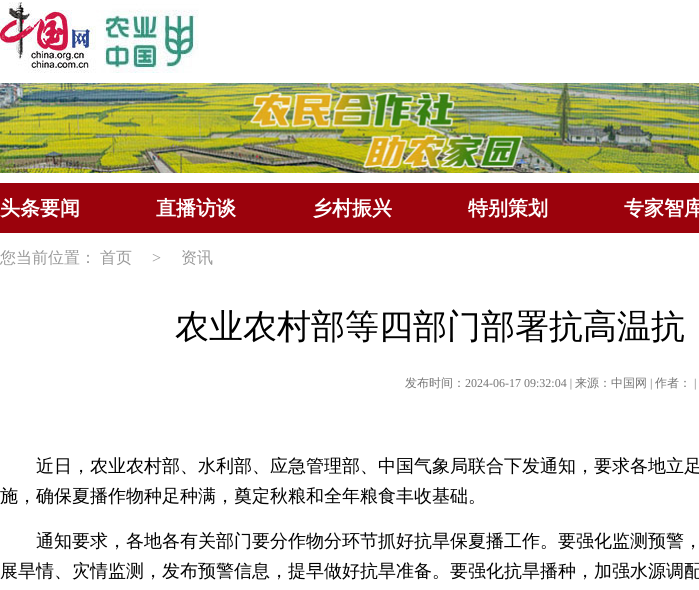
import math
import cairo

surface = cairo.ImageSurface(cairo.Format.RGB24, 699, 590)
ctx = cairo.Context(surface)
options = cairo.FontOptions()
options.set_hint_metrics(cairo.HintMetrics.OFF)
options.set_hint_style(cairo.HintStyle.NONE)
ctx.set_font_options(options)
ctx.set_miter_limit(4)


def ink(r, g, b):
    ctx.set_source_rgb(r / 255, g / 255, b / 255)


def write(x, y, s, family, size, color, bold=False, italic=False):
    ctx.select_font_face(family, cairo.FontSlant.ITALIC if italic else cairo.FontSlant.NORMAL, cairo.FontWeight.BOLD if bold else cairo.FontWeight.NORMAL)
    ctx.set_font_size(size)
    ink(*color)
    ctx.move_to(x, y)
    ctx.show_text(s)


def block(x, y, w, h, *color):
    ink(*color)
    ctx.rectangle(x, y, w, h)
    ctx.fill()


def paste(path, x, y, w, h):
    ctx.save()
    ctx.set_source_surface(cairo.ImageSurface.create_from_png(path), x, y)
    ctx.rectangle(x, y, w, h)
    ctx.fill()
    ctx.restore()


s1 = dict(family="WenQuanYi Zen Hei", size=20, color=(255, 255, 255), bold=True)
s2 = dict(family="WenQuanYi Zen Hei Medium", size=16, color=(153, 153, 153))
s3 = dict(family="Liberation Serif", size=16, color=(153, 153, 153))
s4 = dict(family="WenQuanYi Zen Hei Medium", size=34, color=(0, 0, 0))
s5 = dict(family="WenQuanYi Zen Hei Medium", size=12, color=(117, 117, 117))
s6 = dict(family="Liberation Serif", size=12, color=(117, 117, 117))
s7 = dict(family="WenQuanYi Zen Hei Medium", size=18, color=(0, 0, 0))

ink(255, 255, 255)
ctx.paint()
paste("pic1.png", 0, 2, 199, 71)
paste("pic2.png", 0, 83, 699, 90)
block(0, 183, 699, 50, 155, 2, 12)
write(0, 215, "头条要闻", **s1)
write(156, 215, "直播访谈", **s1)
write(312, 215, "乡村振兴", **s1)
write(468, 215, "特别策划", **s1)
write(624, 215, "专家智库", **s1)
write(0, 263, "您当前位置：", **s2)
write(100, 263, "首页", **s2)
write(152, 263, ">", **s3)
write(181, 263, "资讯", **s2)
write(175, 338, "农业农村部等四部门部署抗高温抗", **s4)
write(405, 387, "发布时间：", **s5)
write(465, 387, "2024-06-17 09:32:04 |", **s6)
write(575, 387, "来源：中国网", **s5)
write(650, 387, "|", **s6)
write(655, 387, "作者：", **s5)
write(694, 387, "|", **s6)
write(36, 472, "近日，农业农村部、水利部、应急管理部、中国气象局联合下发通知，要求各地立足", **s7)
write(0, 502, "施，确保夏播作物种足种满，奠定秋粮和全年粮食丰收基础。", **s7)
write(36, 547, "通知要求，各地各有关部门要分作物分环节抓好抗旱保夏播工作。要强化监测预警，", **s7)
write(0, 577, "展旱情、灾情监测，发布预警信息，提早做好抗旱准备。要强化抗旱播种，加强水源调配", **s7)
surface.write_to_png("screenshot.png")
